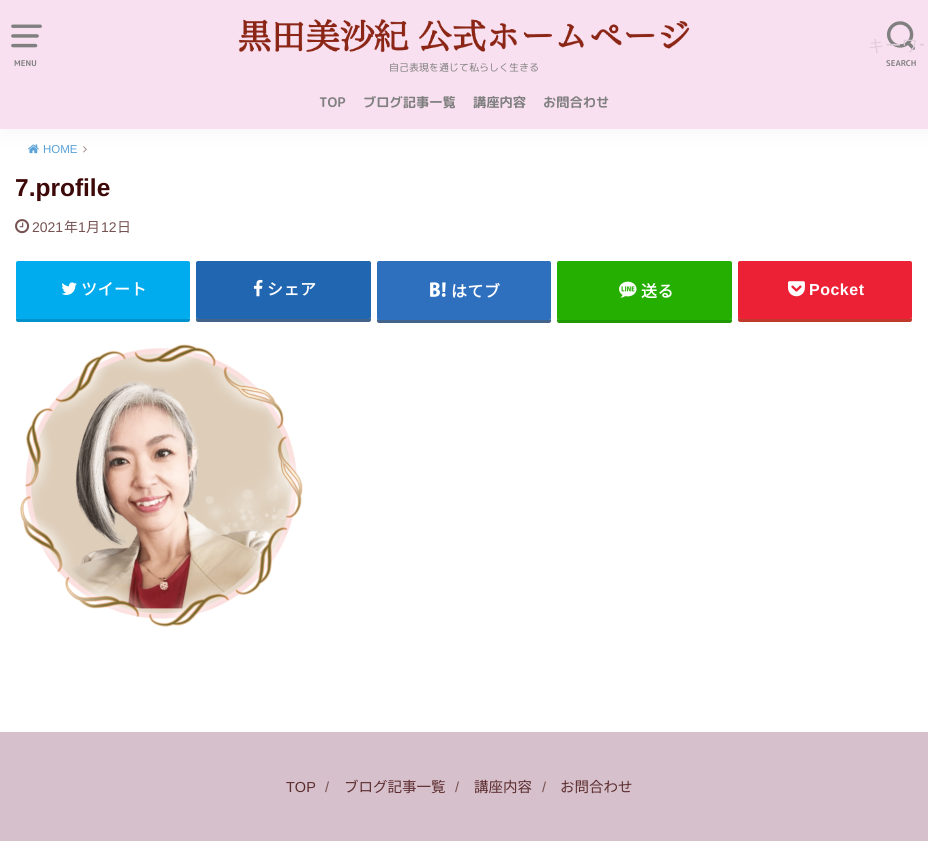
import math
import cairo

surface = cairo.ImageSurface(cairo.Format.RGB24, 928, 841)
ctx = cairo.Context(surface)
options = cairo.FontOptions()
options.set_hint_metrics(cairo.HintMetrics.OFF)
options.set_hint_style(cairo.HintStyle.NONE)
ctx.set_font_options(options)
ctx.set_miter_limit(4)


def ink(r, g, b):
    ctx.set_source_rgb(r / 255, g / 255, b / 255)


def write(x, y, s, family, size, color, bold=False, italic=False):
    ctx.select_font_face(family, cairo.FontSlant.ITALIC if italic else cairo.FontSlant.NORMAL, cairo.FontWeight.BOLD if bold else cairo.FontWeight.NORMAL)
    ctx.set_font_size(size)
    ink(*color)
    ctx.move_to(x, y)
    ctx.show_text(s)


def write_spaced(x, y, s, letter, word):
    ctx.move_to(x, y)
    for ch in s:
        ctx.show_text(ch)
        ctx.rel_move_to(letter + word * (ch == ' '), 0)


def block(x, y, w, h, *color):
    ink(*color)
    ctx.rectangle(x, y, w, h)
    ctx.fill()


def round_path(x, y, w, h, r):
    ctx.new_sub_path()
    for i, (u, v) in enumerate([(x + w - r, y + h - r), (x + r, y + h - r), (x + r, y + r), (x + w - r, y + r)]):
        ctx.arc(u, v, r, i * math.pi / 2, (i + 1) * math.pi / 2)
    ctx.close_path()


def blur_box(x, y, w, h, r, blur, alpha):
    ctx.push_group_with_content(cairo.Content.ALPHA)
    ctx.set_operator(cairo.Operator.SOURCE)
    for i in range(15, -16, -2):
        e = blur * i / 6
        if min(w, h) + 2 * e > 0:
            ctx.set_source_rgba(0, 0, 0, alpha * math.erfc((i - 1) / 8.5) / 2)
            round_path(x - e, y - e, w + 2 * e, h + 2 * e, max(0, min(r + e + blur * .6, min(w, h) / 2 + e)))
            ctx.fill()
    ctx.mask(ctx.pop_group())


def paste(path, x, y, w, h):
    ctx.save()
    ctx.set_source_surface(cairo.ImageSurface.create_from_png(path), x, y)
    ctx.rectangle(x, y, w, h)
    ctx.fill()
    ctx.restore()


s1 = dict(family="Rounded Mplus 1c Bold", size=8, color=(128, 128, 128), bold=True)
s2 = dict(family="Rounded Mplus 1c", size=10, color=(128, 128, 128))
s3 = dict(family="WenQuanYi Zen Hei Medium", size=16.5, color=(224, 204, 217))
s4 = dict(family="Rounded Mplus 1c Bold", size=13.25, color=(128, 128, 128), bold=True)
s5 = dict(family="Liberation Sans", size=11.5, color=(87, 161, 216))
s6 = dict(family="Liberation Sans", size=24.5, color=(61, 8, 8), bold=True)
s7 = dict(family="Liberation Sans", size=14, color=(119, 82, 82))
s8 = dict(family="Noto Sans JP Thin", size=14, color=(119, 82, 82))
s9 = dict(family="Liberation Sans", size=14.5, color=(92, 45, 47))
s10 = dict(family="Liberation Sans", size=14.5, color=(119, 82, 82))
s11 = dict(family="Noto Sans JP Thin", size=14.5, color=(92, 45, 47))

ink(255, 255, 255)
ctx.paint()
paste("pic4.png", 28, 144, 11, 10)
paste("pic5.png", 83, 146, 4, 7)
ink(243, 243, 243)
blur_box(3, -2, 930, 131, 0, 10, 1)
block(0, 0, 928, 129, 249, 224, 240)
paste("pic1.png", 11, 24, 31, 24)
write(14, 66, "MENU", **s1)
paste("pic2.png", 238, 19, 452, 34)
write(389, 71, "自己表現を通じて私らしく生きる", **s2)
paste("pic3.png", 886, 21, 29, 29)
ctx.save()
ctx.rectangle(868, 35, 56, 22)
ctx.clip()
write(868, 51, "キーワー", **s3)
ctx.restore()
write(886, 66, "SEARCH", **s1)
write(319, 107, "TOP", **s4)
write(363, 107, "ブログ記事一覧", **s4)
write(473, 107, "講座内容", **s4)
write(543, 107, "お問合わせ", **s4)
write(43, 153, "HOME", **s5)
write(15, 196, "7.profile", **s6)
paste("pic6.png", 15, 219, 15, 15)
write(32, 232, "2021", **s7)
write(64, 232, "年", **s8)
write(78, 232, "1", **s7)
write(86, 232, "月", **s8)
write(101, 232, "12", **s7)
write(117, 232, "日", **s8)
ink(0, 146, 202)
ctx.new_path()
ctx.move_to(16, 317)
ctx.line_to(16, 320)
ctx.curve_to(16, 321, 17, 322, 18, 322)
ctx.line_to(188, 322)
ctx.curve_to(189, 322, 190, 321, 190, 320)
ctx.line_to(190, 317)
ctx.line_to(189, 319)
ctx.line_to(103, 319)
ctx.line_to(18, 319)
ctx.line_to(16, 318)
ctx.close_path()
ctx.fill()
ink(0, 172, 238)
round_path(16, 261, 174, 58, 2)
ctx.fill()
paste("pic7.png", 61, 282, 16, 13)
ctx.select_font_face("Noto Sans JP", cairo.FontSlant.NORMAL, cairo.FontWeight.BOLD)
ctx.set_font_size(16)
ink(255, 255, 255)
write_spaced(81, 295, "ツイート", 0.5, 0)
ink(67, 99, 139)
ctx.new_path()
ctx.move_to(196, 317)
ctx.line_to(196, 320)
ctx.curve_to(196, 321, 197, 322, 198, 322)
ctx.line_to(369, 322)
ctx.curve_to(370, 322, 371, 321, 371, 320)
ctx.line_to(371, 317)
ctx.curve_to(371, 318, 370, 319, 369, 319)
ctx.line_to(198, 319)
ctx.curve_to(197, 319, 196, 318, 196, 317)
ctx.close_path()
ctx.fill()
ink(32, 102, 177)
round_path(196, 261, 175, 58, 2)
ctx.fill()
paste("pic8.png", 253, 279, 10, 18)
ink(255, 255, 255)
write_spaced(267, 295, "シェア", 0.5, 0)
ink(67, 99, 139)
ctx.new_path()
ctx.move_to(377, 318)
ctx.line_to(377, 321)
ctx.curve_to(377, 322, 378, 323, 379, 323)
ctx.line_to(549, 323)
ctx.curve_to(550, 323, 551, 322, 551, 321)
ctx.line_to(551, 318)
ctx.line_to(550, 320)
ctx.line_to(464, 320)
ctx.line_to(379, 320)
ctx.line_to(377, 319)
ctx.close_path()
ctx.fill()
ink(47, 112, 190)
round_path(377, 261, 174, 59, 2)
ctx.fill()
paste("pic9.png", 430, 282, 16, 15)
ink(255, 255, 255)
write_spaced(451, 297, "はてブ", 0.5, 0)
ink(33, 153, 0)
ctx.new_path()
ctx.move_to(557, 318)
ctx.line_to(557, 321)
ctx.curve_to(557, 322, 558, 323, 559, 323)
ctx.line_to(730, 323)
ctx.curve_to(731, 323, 732, 322, 732, 321)
ctx.line_to(732, 318)
ctx.curve_to(732, 319, 731, 320, 730, 320)
ctx.line_to(559, 320)
ctx.curve_to(558, 320, 557, 319, 557, 318)
ctx.close_path()
ctx.fill()
ink(37, 175, 0)
round_path(557, 261, 175, 59, 2)
ctx.fill()
paste("pic10.png", 619, 281, 18, 17)
ink(255, 255, 255)
write_spaced(641, 297, "送る", 0.5, 0)
ink(192, 57, 43)
ctx.new_path()
ctx.move_to(738, 317)
ctx.line_to(738, 320)
ctx.curve_to(738, 321, 739, 322, 740, 322)
ctx.line_to(910, 322)
ctx.curve_to(911, 322, 912, 321, 912, 320)
ctx.line_to(912, 317)
ctx.line_to(912, 318)
ctx.line_to(910, 319)
ctx.line_to(739, 319)
ctx.close_path()
ctx.fill()
ink(236, 33, 54)
round_path(738, 261, 174, 58, 2)
ctx.fill()
paste("pic11.png", 788, 281, 17, 16)
ctx.select_font_face("Liberation Sans", cairo.FontSlant.NORMAL, cairo.FontWeight.BOLD)
ink(255, 255, 255)
write_spaced(809, 295, "Pocket", 0.5, 0)
paste("pic12.png", 20, 344, 283, 283)
block(0, 732, 928, 109, 214, 192, 203)
write(286, 792, "TOP", **s9)
write(325, 792, "/", **s10)
write(344, 792, "ブログ記事一覧", **s11)
write(455, 792, "/", **s10)
write(474, 792, "講座内容", **s11)
write(542, 792, "/", **s10)
write(560, 792, "お問合わせ", **s11)
surface.write_to_png("screenshot.png")
